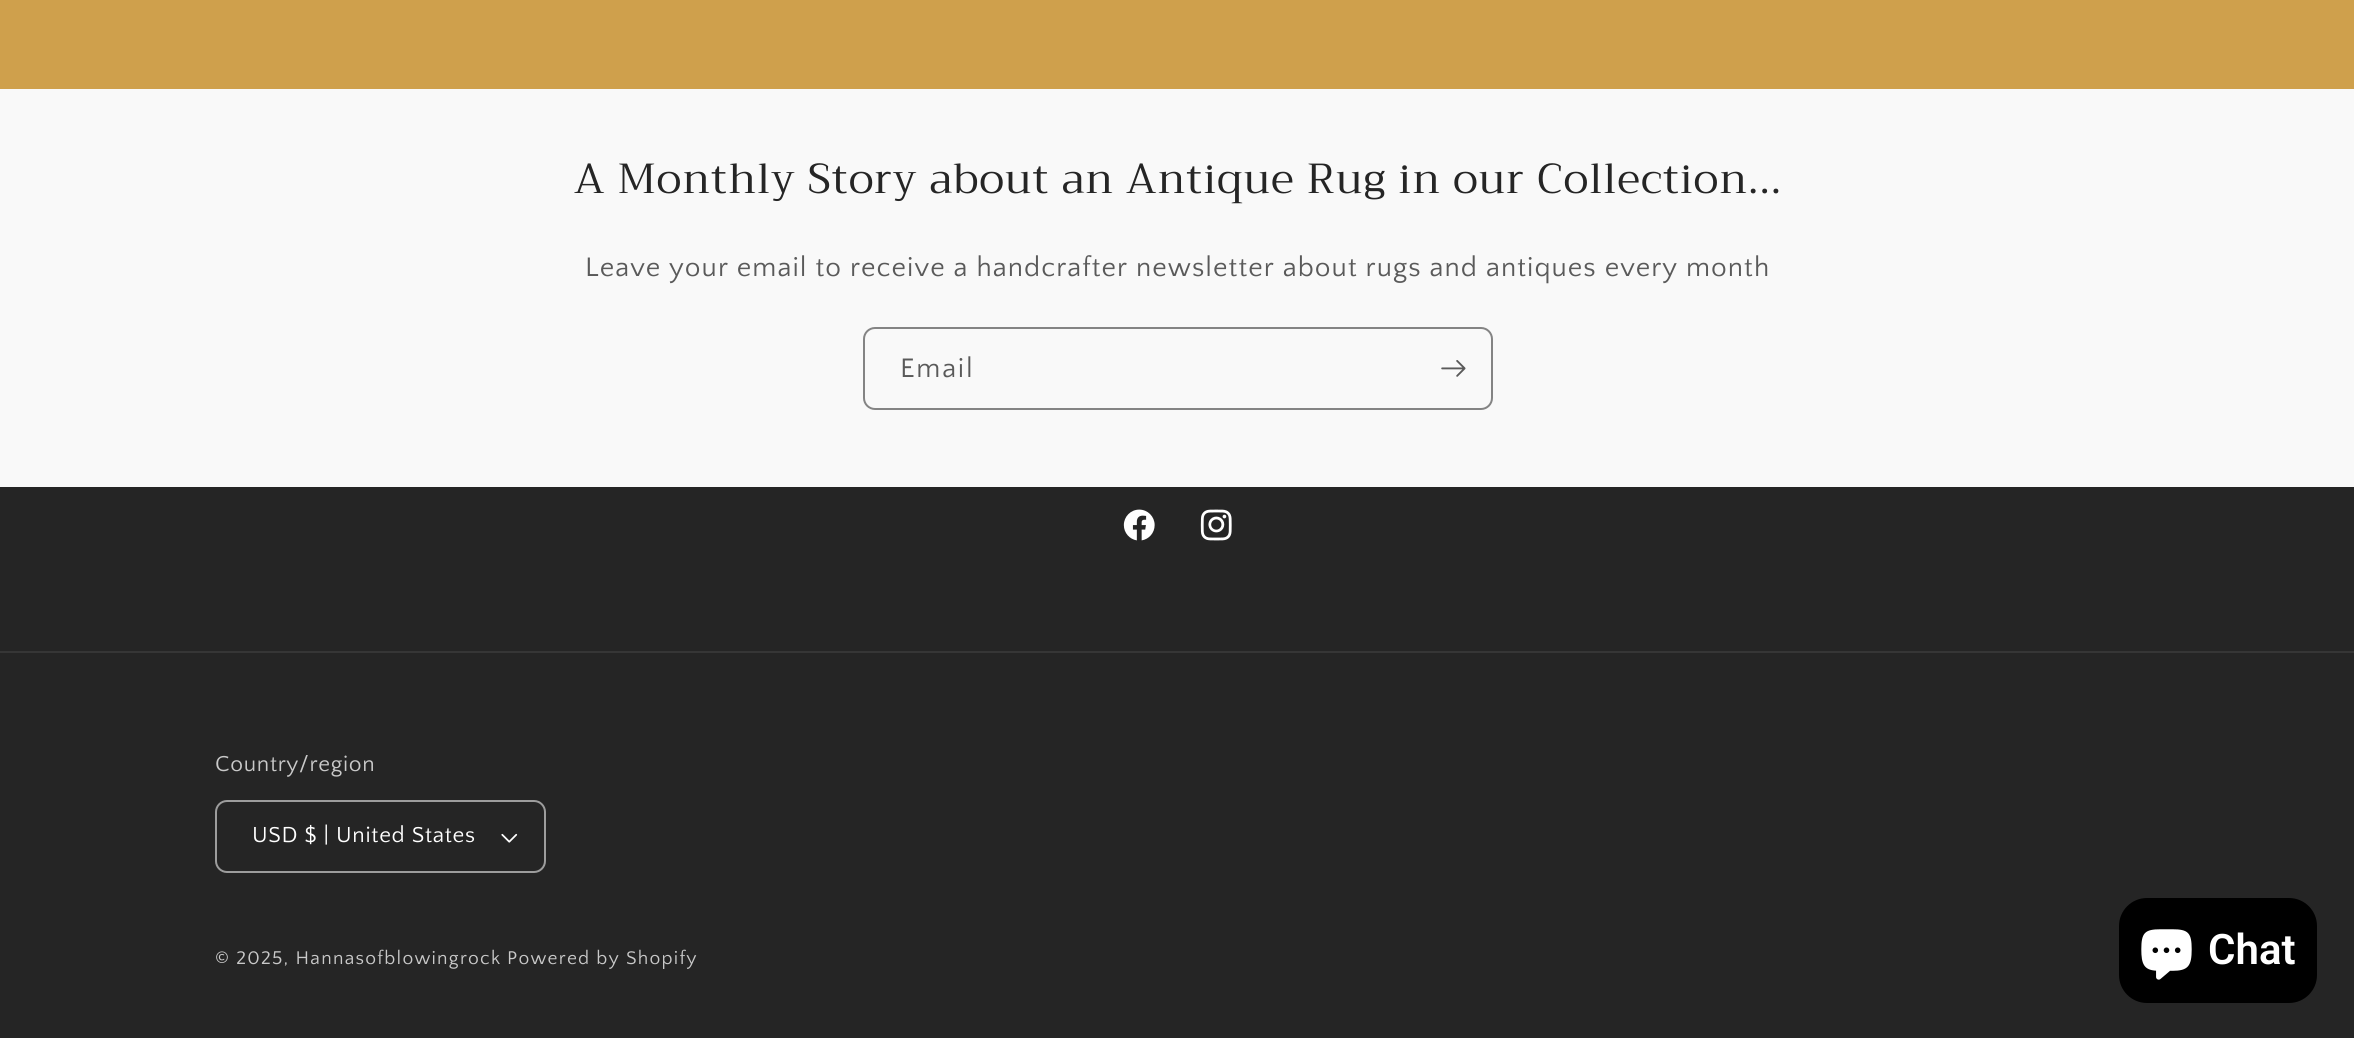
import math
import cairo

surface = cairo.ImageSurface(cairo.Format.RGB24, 2354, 1038)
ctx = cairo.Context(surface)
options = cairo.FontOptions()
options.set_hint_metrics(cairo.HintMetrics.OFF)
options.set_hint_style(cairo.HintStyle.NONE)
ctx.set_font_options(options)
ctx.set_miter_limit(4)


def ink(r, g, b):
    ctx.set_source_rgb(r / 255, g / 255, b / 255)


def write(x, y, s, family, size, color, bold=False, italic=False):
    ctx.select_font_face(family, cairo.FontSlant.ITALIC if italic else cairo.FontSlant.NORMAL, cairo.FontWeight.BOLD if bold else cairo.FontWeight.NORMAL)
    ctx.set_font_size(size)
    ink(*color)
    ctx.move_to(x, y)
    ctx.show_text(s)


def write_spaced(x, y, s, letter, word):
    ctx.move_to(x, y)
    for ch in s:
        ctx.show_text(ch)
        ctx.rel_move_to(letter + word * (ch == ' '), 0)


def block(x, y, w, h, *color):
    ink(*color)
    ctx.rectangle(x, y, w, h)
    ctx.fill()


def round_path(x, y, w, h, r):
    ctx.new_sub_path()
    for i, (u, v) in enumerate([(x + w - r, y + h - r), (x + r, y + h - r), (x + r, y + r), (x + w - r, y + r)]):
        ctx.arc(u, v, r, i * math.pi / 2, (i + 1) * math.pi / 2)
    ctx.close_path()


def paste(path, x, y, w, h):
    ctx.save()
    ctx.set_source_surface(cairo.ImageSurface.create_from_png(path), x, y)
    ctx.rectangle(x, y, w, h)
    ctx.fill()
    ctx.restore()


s1 = dict(family="Roboto SemiBold", size=42, color=(255, 255, 255))

ink(207, 160, 76)
ctx.paint()
block(0, 89, 2354, 398, 249, 249, 249)
ctx.select_font_face("Trirong")
ctx.set_font_size(42)
ink(37, 37, 37)
write_spaced(574, 193, "A Monthly Story about an Antique Rug in our Collection...", 1.05, 0)
ctx.select_font_face("Quattrocento Sans")
ctx.set_font_size(28)
ink(90, 90, 90)
write_spaced(585, 276, "Leave your email to receive a handcrafter newsletter about rugs and antiques every month", 1.05, 0)
round_path(864, 328, 628, 81, 11)
ink(132, 132, 132)
ctx.stroke()
ink(90, 90, 90)
write_spaced(900, 377, "Email", 1.75, 0)
paste("pic1.png", 1441, 360, 25, 17)
block(0, 487, 2354, 551, 37, 37, 37)
paste("pic2.png", 1123, 509, 32, 32)
paste("pic3.png", 1200, 509, 32, 32)
block(0, 651, 2354, 2, 54, 54, 54)
ctx.set_font_size(22.75)
ink(201, 201, 201)
write_spaced(215, 771, "Country/region", 0.7, 0)
paste("pic4.png", 501, 833, 17, 10)
round_path(216, 801, 329, 71, 11)
ink(157, 157, 157)
ctx.stroke()
ink(255, 255, 255)
write_spaced(252, 842, "USD $ | United States", 0.7, 0)
ctx.set_font_size(19.25)
ink(201, 201, 201)
write_spaced(215, 964, "© 2025, Hannasofblowingrock", 1.25, 0)
write_spaced(507, 964, "Powered by Shopify", 1.25, 0)
ink(0, 0, 0)
round_path(2119, 898, 198, 105, 28)
ctx.fill()
paste("pic5.png", 2141, 929, 51, 51)
write(2208, 964, "Chat", **s1)
surface.write_to_png("screenshot.png")
